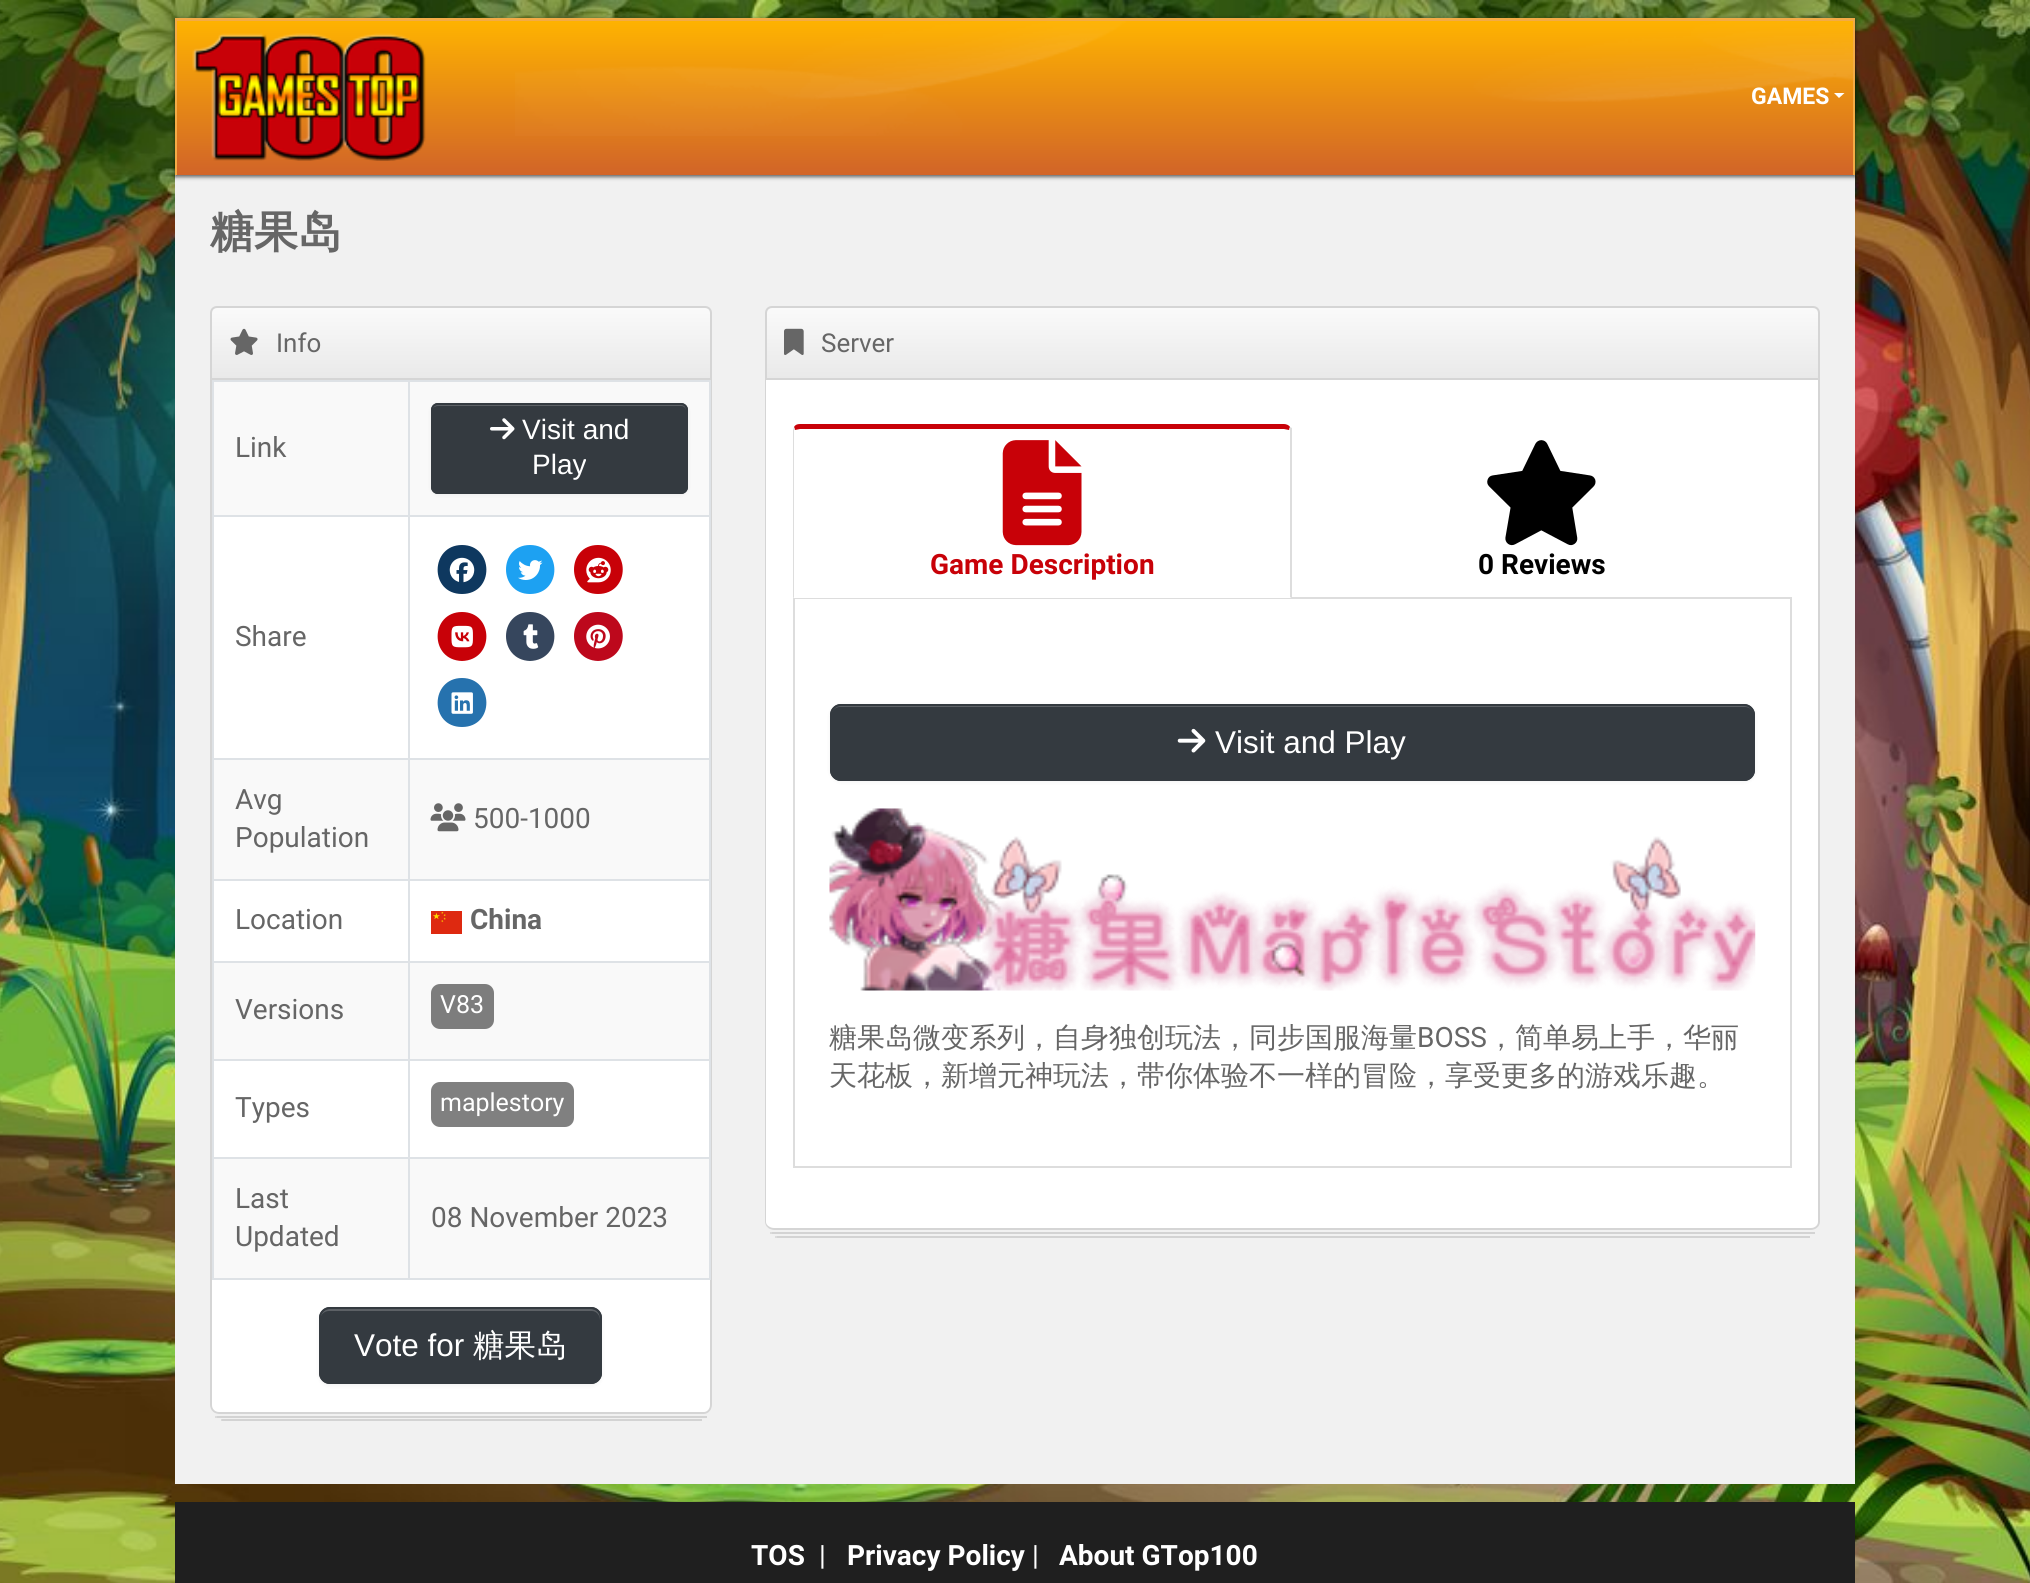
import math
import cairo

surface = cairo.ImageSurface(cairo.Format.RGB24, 2030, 1583)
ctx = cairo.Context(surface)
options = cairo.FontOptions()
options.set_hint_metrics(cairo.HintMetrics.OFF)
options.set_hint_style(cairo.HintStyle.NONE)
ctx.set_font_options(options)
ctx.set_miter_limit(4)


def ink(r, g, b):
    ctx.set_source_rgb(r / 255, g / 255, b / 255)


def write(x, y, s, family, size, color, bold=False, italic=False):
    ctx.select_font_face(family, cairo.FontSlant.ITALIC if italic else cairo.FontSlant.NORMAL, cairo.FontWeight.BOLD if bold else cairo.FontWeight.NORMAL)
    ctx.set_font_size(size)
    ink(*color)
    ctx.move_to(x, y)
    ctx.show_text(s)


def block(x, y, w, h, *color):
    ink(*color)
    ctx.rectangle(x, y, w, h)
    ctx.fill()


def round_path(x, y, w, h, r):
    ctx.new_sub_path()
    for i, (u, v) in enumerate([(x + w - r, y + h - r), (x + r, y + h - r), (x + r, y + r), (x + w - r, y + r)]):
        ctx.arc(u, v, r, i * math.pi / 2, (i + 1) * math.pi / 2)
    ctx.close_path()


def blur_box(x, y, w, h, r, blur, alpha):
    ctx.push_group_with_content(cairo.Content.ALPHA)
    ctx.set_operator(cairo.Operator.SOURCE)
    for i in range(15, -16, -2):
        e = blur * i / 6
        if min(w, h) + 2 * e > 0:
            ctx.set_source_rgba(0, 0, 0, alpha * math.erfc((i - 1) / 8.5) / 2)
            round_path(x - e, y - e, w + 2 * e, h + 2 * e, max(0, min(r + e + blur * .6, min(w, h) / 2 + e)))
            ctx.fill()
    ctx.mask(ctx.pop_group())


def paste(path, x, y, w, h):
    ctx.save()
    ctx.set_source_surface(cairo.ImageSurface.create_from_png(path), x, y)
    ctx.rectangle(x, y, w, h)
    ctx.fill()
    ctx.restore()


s1 = dict(family="Roboto", size=23, color=(255, 255, 255), bold=True)
s2 = dict(family="WenQuanYi Zen Hei", size=44, color=(102, 102, 102), bold=True)
s3 = dict(family="Roboto", size=26, color=(102, 102, 102))
s4 = dict(family="Roboto", size=28, color=(102, 102, 102))
s5 = dict(family="Liberation Sans", size=28, color=(255, 255, 255))
s6 = dict(family="Roboto", size=28, color=(102, 102, 102), bold=True)
s7 = dict(family="Roboto", size=25, color=(255, 255, 255))
s8 = dict(family="Liberation Sans", size=31.5, color=(255, 255, 255))
s9 = dict(family="WenQuanYi Zen Hei Medium", size=31.5, color=(255, 255, 255))
s10 = dict(family="Roboto", size=28, color=(200, 1, 8), bold=True)
s11 = dict(family="Roboto", size=28, color=(0, 0, 0), bold=True)
s12 = dict(family="WenQuanYi Zen Hei Medium", size=28, color=(102, 102, 102))
s13 = dict(family="Roboto", size=28, color=(255, 255, 255), bold=True)
s14 = dict(family="Roboto", size=28, color=(255, 255, 255))

ink(255, 255, 255)
ctx.paint()
paste("pic1.png", 0, 0, 2030, 1583)
gradient = cairo.LinearGradient(1015, 175, 1015, 18)
gradient.add_color_stop_rgba(0, 0.82, 0.392, 0.157, 1)
gradient.add_color_stop_rgba(1, 1, 0.706, 0, 1)
ctx.set_source(gradient)
ctx.rectangle(177, 21, 1676, 154)
ctx.fill()
block(175, 175, 1680, 1309, 241, 241, 241)
ctx.save()
ctx.set_fill_rule(cairo.FillRule.EVEN_ODD)
ctx.new_path()
ctx.move_to(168, 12)
ctx.line_to(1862, 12)
ctx.line_to(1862, 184)
ctx.line_to(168, 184)
ctx.close_path()
ctx.move_to(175, 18)
ctx.line_to(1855, 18)
ctx.line_to(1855, 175)
ctx.line_to(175, 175)
ctx.close_path()
ctx.clip()
ink(0, 0, 0)
blur_box(175, 19, 1680, 158, 0, 2, 0.6)
ctx.restore()
paste("pic2.png", 515, 21, 1338, 115)
ctx.save()
ctx.rectangle(175, 18, 1680, 157)
ctx.clip()
ink(243, 171, 70)
ctx.set_fill_rule(cairo.FillRule.EVEN_ODD)
ctx.new_path()
ctx.move_to(2, -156)
ctx.line_to(2028, -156)
ctx.line_to(2028, 348)
ctx.line_to(2, 348)
ctx.close_path()
ctx.move_to(177, 21)
ctx.line_to(1853, 21)
ctx.line_to(1853, 175)
ctx.line_to(177, 175)
ctx.close_path()
ctx.fill()
ctx.restore()
paste("pic3.png", 192, 33, 234, 128)
write(1751, 104, "GAMES", **s1)
ctx.new_path()
ctx.move_to(1834, 93)
ctx.line_to(1844.5, 93)
ctx.line_to(1839, 98)
ctx.close_path()
ctx.fill()
write(210, 247, "糖果岛", **s2)
gradient = cairo.LinearGradient(461, 308, 461, 378)
gradient.add_color_stop_rgba(0, 0.98, 0.98, 0.98, 1)
gradient.add_color_stop_rgba(1, 0.914, 0.914, 0.914, 1)
ctx.set_source(gradient)
ctx.new_path()
ctx.move_to(217, 308)
ctx.line_to(706, 308)
ctx.curve_to(709, 308, 711, 310, 711, 313)
ctx.line_to(711, 378)
ctx.line_to(212, 378)
ctx.line_to(212, 313)
ctx.curve_to(212, 310, 214, 308, 217, 308)
ctx.close_path()
ctx.fill()
ctx.new_path()
ctx.move_to(217, 307)
ctx.line_to(705, 307)
ctx.curve_to(708.5, 307, 711, 309.5, 711, 313)
ctx.line_to(711, 379)
ctx.line_to(211, 379)
ctx.line_to(211, 313)
ctx.curve_to(211, 309.5, 213.5, 307, 217, 307)
ctx.close_path()
ink(213, 213, 213)
ctx.stroke()
paste("pic4.png", 230, 328, 28, 27)
write(276, 352, "Info", **s3)
ink(255, 255, 255)
ctx.new_path()
ctx.move_to(210, 380)
ctx.line_to(712, 380)
ctx.line_to(712, 1405)
ctx.curve_to(712, 1410, 708, 1414, 703, 1414)
ctx.line_to(219, 1414)
ctx.curve_to(214, 1414, 210, 1410, 210, 1405)
ctx.close_path()
ctx.fill()
ink(213, 213, 213)
ctx.set_fill_rule(cairo.FillRule.EVEN_ODD)
ctx.new_path()
ctx.move_to(210, 380)
ctx.line_to(712, 380)
ctx.line_to(712, 1405)
ctx.curve_to(712, 1410, 708, 1414, 704, 1414)
ctx.line_to(219, 1414)
ctx.curve_to(214, 1414, 210, 1410, 210, 1405)
ctx.close_path()
ctx.move_to(212, 380)
ctx.line_to(710, 380)
ctx.line_to(710, 1405)
ctx.curve_to(710, 1409, 707, 1412, 704, 1412)
ctx.line_to(219, 1412)
ctx.curve_to(215, 1412, 212, 1409, 212, 1405)
ctx.close_path()
ctx.fill()
block(214, 382, 495, 133, 249, 249, 249)
block(408, 380, 303, 2, 222, 226, 230)
block(408, 515, 303, 2, 222, 226, 230)
block(408, 758, 303, 2, 222, 226, 230)
block(214, 760, 495, 119, 249, 249, 249)
block(408, 879, 303, 2, 222, 226, 230)
block(408, 961, 303, 2, 222, 226, 230)
block(214, 963, 495, 96, 249, 249, 249)
block(408, 1059, 303, 2, 222, 226, 230)
block(408, 1157, 303, 2, 222, 226, 230)
block(214, 1159, 495, 119, 249, 249, 249)
block(709, 1157, 2, 122, 222, 226, 230)
block(408, 1278, 303, 2, 222, 226, 230)
block(408, 1157, 2, 122, 222, 226, 230)
block(212, 1157, 198, 2, 222, 226, 230)
block(408, 1059, 2, 100, 222, 226, 230)
block(212, 1059, 198, 2, 222, 226, 230)
block(408, 961, 2, 100, 222, 226, 230)
block(212, 961, 198, 2, 222, 226, 230)
block(408, 879, 2, 84, 222, 226, 230)
block(212, 879, 198, 2, 222, 226, 230)
block(408, 758, 2, 122, 222, 226, 230)
block(212, 758, 198, 2, 222, 226, 230)
block(408, 515, 2, 245, 222, 226, 230)
block(212, 515, 198, 2, 222, 226, 230)
block(408, 380, 2, 136, 222, 226, 230)
block(212, 380, 198, 2, 222, 226, 230)
block(212, 1278, 198, 2, 222, 226, 230)
block(212, 1157, 2, 122, 222, 226, 230)
block(212, 1059, 2, 100, 222, 226, 230)
block(212, 961, 2, 100, 222, 226, 230)
block(212, 879, 2, 84, 222, 226, 230)
block(212, 758, 2, 122, 222, 226, 230)
block(212, 515, 2, 245, 222, 226, 230)
block(212, 380, 2, 136, 222, 226, 230)
write(235, 457, "Link", **s4)
block(709, 1059, 2, 100, 222, 226, 230)
block(709, 961, 2, 100, 222, 226, 230)
block(709, 879, 2, 84, 222, 226, 230)
block(709, 758, 2, 122, 222, 226, 230)
block(709, 515, 2, 245, 222, 226, 230)
block(709, 380, 2, 136, 222, 226, 230)
ink(0, 0, 0)
blur_box(431, 404, 257, 91, 7, 2, 0.05)
ink(52, 58, 64)
round_path(431, 403, 257, 91, 7)
ctx.fill()
ink(93, 97, 102)
ctx.set_fill_rule(cairo.FillRule.WINDING)
ctx.new_path()
ctx.move_to(438, 406)
ctx.line_to(681, 406)
ctx.curve_to(684, 406, 686, 408, 686, 411)
ctx.curve_to(686, 408, 685, 404, 681, 404)
ctx.line_to(437, 404)
ctx.curve_to(433, 404, 432, 408, 432, 411)
ctx.curve_to(432, 408, 435, 406, 438, 406)
ctx.close_path()
ctx.fill()
round_path(432, 404, 255, 89, 6)
ink(52, 58, 64)
ctx.stroke()
paste("pic5.png", 490, 418, 25, 22)
write(522, 439, "Visit and", **s5)
write(532, 474, "Play", **s5)
write(235, 646, "Share", **s4)
ink(14, 56, 95)
ctx.new_path()
ctx.move_to(462, 594)
ctx.curve_to(495, 594, 494, 545, 462, 545)
ctx.curve_to(430, 545, 429, 594, 462, 594)
ctx.close_path()
ctx.fill()
paste("pic6.png", 449, 557, 26, 26)
ink(29, 161, 242)
ctx.new_path()
ctx.move_to(530, 594)
ctx.curve_to(563, 594, 562, 545, 530, 545)
ctx.curve_to(498, 545, 498, 594, 530, 594)
ctx.close_path()
ctx.fill()
paste("pic7.png", 518, 560, 25, 20)
ink(200, 1, 8)
ctx.new_path()
ctx.move_to(598, 594)
ctx.curve_to(631, 594, 631, 545, 598, 545)
ctx.curve_to(566, 545, 566, 594, 598, 594)
ctx.close_path()
ctx.fill()
paste("pic8.png", 586, 557, 25, 26)
ctx.new_path()
ctx.move_to(462, 661)
ctx.curve_to(495, 660, 494, 612, 462, 612)
ctx.curve_to(430, 612, 429, 660, 462, 661)
ctx.close_path()
ctx.fill()
paste("pic9.png", 451, 625, 22, 23)
ink(54, 70, 93)
ctx.new_path()
ctx.move_to(530, 661)
ctx.curve_to(563, 660, 562, 612, 530, 612)
ctx.curve_to(498, 612, 498, 660, 530, 661)
ctx.close_path()
ctx.fill()
paste("pic10.png", 523, 624, 16, 25)
ink(189, 8, 28)
ctx.new_path()
ctx.move_to(598, 661)
ctx.curve_to(631, 660, 631, 612, 598, 612)
ctx.curve_to(566, 612, 566, 660, 598, 661)
ctx.close_path()
ctx.fill()
paste("pic11.png", 586, 624, 24, 25)
ink(38, 114, 174)
ctx.new_path()
ctx.move_to(462, 727)
ctx.curve_to(495, 727, 494, 678, 462, 678)
ctx.curve_to(430, 678, 429, 727, 462, 727)
ctx.close_path()
ctx.fill()
paste("pic12.png", 451, 692, 22, 22)
write(235, 809, "Avg", **s4)
write(235, 847, "Population", **s4)
paste("pic13.png", 430, 803, 36, 29)
write(473, 828, "500-1000", **s4)
write(235, 929, "Location", **s4)
paste("pic14.png", 431, 911, 31, 23)
write(470, 929, "China", **s6)
write(235, 1019, "Versions", **s4)
ink(125, 125, 125)
round_path(431, 984, 63, 45, 9)
ctx.fill()
write(440, 1013, "V83", **s7)
write(235, 1117, "Types", **s4)
ink(128, 128, 128)
round_path(431, 1082, 143, 45, 9)
ctx.fill()
write(440, 1111, "maplestory", **s7)
write(235, 1208, "Last", **s4)
write(235, 1246, "Updated", **s4)
write(431, 1227, "08 November 2023", **s4)
ink(0, 0, 0)
blur_box(319, 1309, 283, 77, 11, 2, 0.05)
ink(52, 58, 64)
round_path(319, 1307, 283, 77, 11)
ctx.fill()
ink(93, 97, 102)
ctx.new_path()
ctx.move_to(329, 1311)
ctx.line_to(592, 1311)
ctx.curve_to(596, 1311, 600, 1315, 600, 1320)
ctx.line_to(600, 1318)
ctx.curve_to(600, 1313, 596, 1309, 591, 1309)
ctx.line_to(329, 1309)
ctx.curve_to(324, 1309, 320, 1313, 320, 1318)
ctx.line_to(320, 1320)
ctx.curve_to(320, 1315, 324, 1311, 329, 1311)
ctx.close_path()
ctx.fill()
round_path(320, 1308, 281, 75, 10)
ink(52, 58, 64)
ctx.stroke()
write(354, 1356, "Vote for", **s8)
write(473, 1356, "糖果岛", **s9)
block(217, 1416, 490, 2, 211, 211, 211)
ctx.new_path()
ctx.arc(216, 1417, 1, 0, 2 * math.pi)
ctx.fill()
block(222, 1419, 480, 2, 211, 211, 211)
ctx.arc(222, 1420, 1, 0, 2 * math.pi)
ctx.fill()
gradient = cairo.LinearGradient(1292, 308, 1292, 378)
gradient.add_color_stop_rgba(0, 0.98, 0.98, 0.98, 1)
gradient.add_color_stop_rgba(1, 0.914, 0.914, 0.914, 1)
ctx.set_source(gradient)
ctx.new_path()
ctx.move_to(772, 308)
ctx.line_to(1813, 308)
ctx.curve_to(1816, 308, 1818, 310, 1818, 313)
ctx.line_to(1818, 378)
ctx.line_to(767, 378)
ctx.line_to(767, 313)
ctx.curve_to(767, 310, 769, 308, 772, 308)
ctx.close_path()
ctx.fill()
ctx.new_path()
ctx.move_to(772, 307)
ctx.line_to(1813, 307)
ctx.curve_to(1816.5, 307, 1819, 309.5, 1819, 313)
ctx.line_to(1819, 379)
ctx.line_to(766, 379)
ctx.line_to(766, 313)
ctx.curve_to(766, 309.5, 768.5, 307, 772, 307)
ctx.close_path()
ink(213, 213, 213)
ctx.stroke()
paste("pic15.png", 784, 328, 20, 27)
write(821, 352, "Server", **s3)
ink(255, 255, 255)
ctx.new_path()
ctx.move_to(765, 380)
ctx.line_to(1820, 380)
ctx.line_to(1820, 1221)
ctx.curve_to(1820, 1226, 1816, 1230, 1811, 1230)
ctx.line_to(774, 1230)
ctx.curve_to(769, 1230, 765, 1226, 765, 1221)
ctx.close_path()
ctx.fill()
ink(213, 213, 213)
ctx.set_fill_rule(cairo.FillRule.EVEN_ODD)
ctx.new_path()
ctx.move_to(765, 380)
ctx.line_to(1820, 380)
ctx.line_to(1820, 1222)
ctx.curve_to(1820, 1226, 1816, 1230, 1811, 1230)
ctx.line_to(774, 1230)
ctx.curve_to(769, 1230, 765, 1226, 765, 1222)
ctx.close_path()
ctx.move_to(766, 380)
ctx.line_to(1818, 380)
ctx.line_to(1818, 1222)
ctx.curve_to(1818, 1225, 1815, 1228, 1811, 1228)
ctx.line_to(774, 1228)
ctx.curve_to(770, 1228, 766, 1225, 766, 1222)
ctx.close_path()
ctx.fill()
block(793, 597, 999, 2, 221, 221, 221)
ink(200, 1, 8)
ctx.set_fill_rule(cairo.FillRule.WINDING)
ctx.new_path()
ctx.move_to(800, 424)
ctx.curve_to(797, 424, 795, 425, 794, 427)
ctx.line_to(795, 430)
ctx.line_to(800, 429)
ctx.line_to(1284, 429)
ctx.line_to(1289, 430)
ctx.line_to(1290, 427)
ctx.curve_to(1289, 425, 1286, 424, 1284, 424)
ctx.close_path()
ctx.fill()
ink(221, 221, 221)
ctx.new_path()
ctx.move_to(1292, 598)
ctx.line_to(1290, 597)
ctx.line_to(1290, 430)
ctx.line_to(1289, 430)
ctx.line_to(1290, 427)
ctx.line_to(1292, 428)
ctx.close_path()
ctx.fill()
ink(255, 255, 255)
ctx.new_path()
ctx.move_to(1291, 598)
ctx.line_to(793, 598)
ctx.line_to(794, 597)
ctx.line_to(1290, 597)
ctx.close_path()
ctx.fill()
ink(221, 221, 221)
ctx.new_path()
ctx.move_to(794, 427)
ctx.line_to(793, 430)
ctx.line_to(793, 598)
ctx.line_to(794, 597)
ctx.line_to(794, 430)
ctx.line_to(795, 430)
ctx.close_path()
ctx.fill()
paste("pic16.png", 1002, 440, 80, 106)
write(930, 574, "Game Description", **s10)
paste("pic17.png", 1487, 440, 109, 106)
write(1478, 574, "0 Reviews", **s11)
block(1790, 599, 2, 568, 221, 221, 221)
block(793, 1166, 999, 2, 221, 221, 221)
block(793, 599, 2, 568, 221, 221, 221)
ink(0, 0, 0)
blur_box(830, 705, 925, 77, 11, 2, 0.05)
ink(52, 58, 64)
round_path(830, 704, 925, 77, 11)
ctx.fill()
ink(93, 97, 102)
ctx.new_path()
ctx.move_to(840, 707)
ctx.line_to(1745, 707)
ctx.curve_to(1750, 707, 1754, 711, 1754, 716)
ctx.line_to(1754, 714)
ctx.curve_to(1754, 709, 1750, 705, 1745, 705)
ctx.line_to(840, 705)
ctx.curve_to(835, 705, 831, 709, 831, 714)
ctx.line_to(831, 716)
ctx.curve_to(831, 711, 835, 707, 840, 707)
ctx.close_path()
ctx.fill()
round_path(831, 705, 923, 75, 10)
ink(52, 58, 64)
ctx.stroke()
paste("pic18.png", 1177, 728, 29, 25)
write(1215, 753, "Visit and Play", **s8)
paste("pic19.png", 829, 808, 927, 183)
write(829, 1047, "糖果岛微变系列，自身独创玩法，同步国服海量", **s12)
write(1417, 1047, "BOSS", **s4)
write(1487, 1047, "，简单易上手，华丽", **s12)
write(829, 1085, "天花板，新增元神玩法，带你体验不一样的冒险，享受更多的游戏乐趣。", **s12)
block(772, 1232, 1043, 2, 211, 211, 211)
ctx.new_path()
ctx.arc(771, 1233, 1, 0, 2 * math.pi)
ctx.fill()
block(777, 1236, 1033, 2, 211, 211, 211)
ctx.arc(776, 1237, 1, 0, 2 * math.pi)
ctx.fill()
block(175, 1502, 1680, 81, 31, 31, 31)
write(751, 1565, "TOS", **s13)
write(819, 1565, "|", **s14)
write(847, 1565, "Privacy Policy", **s13)
write(1032, 1565, "|", **s14)
write(1059, 1565, "About GTop100", **s13)
surface.write_to_png("screenshot.png")
